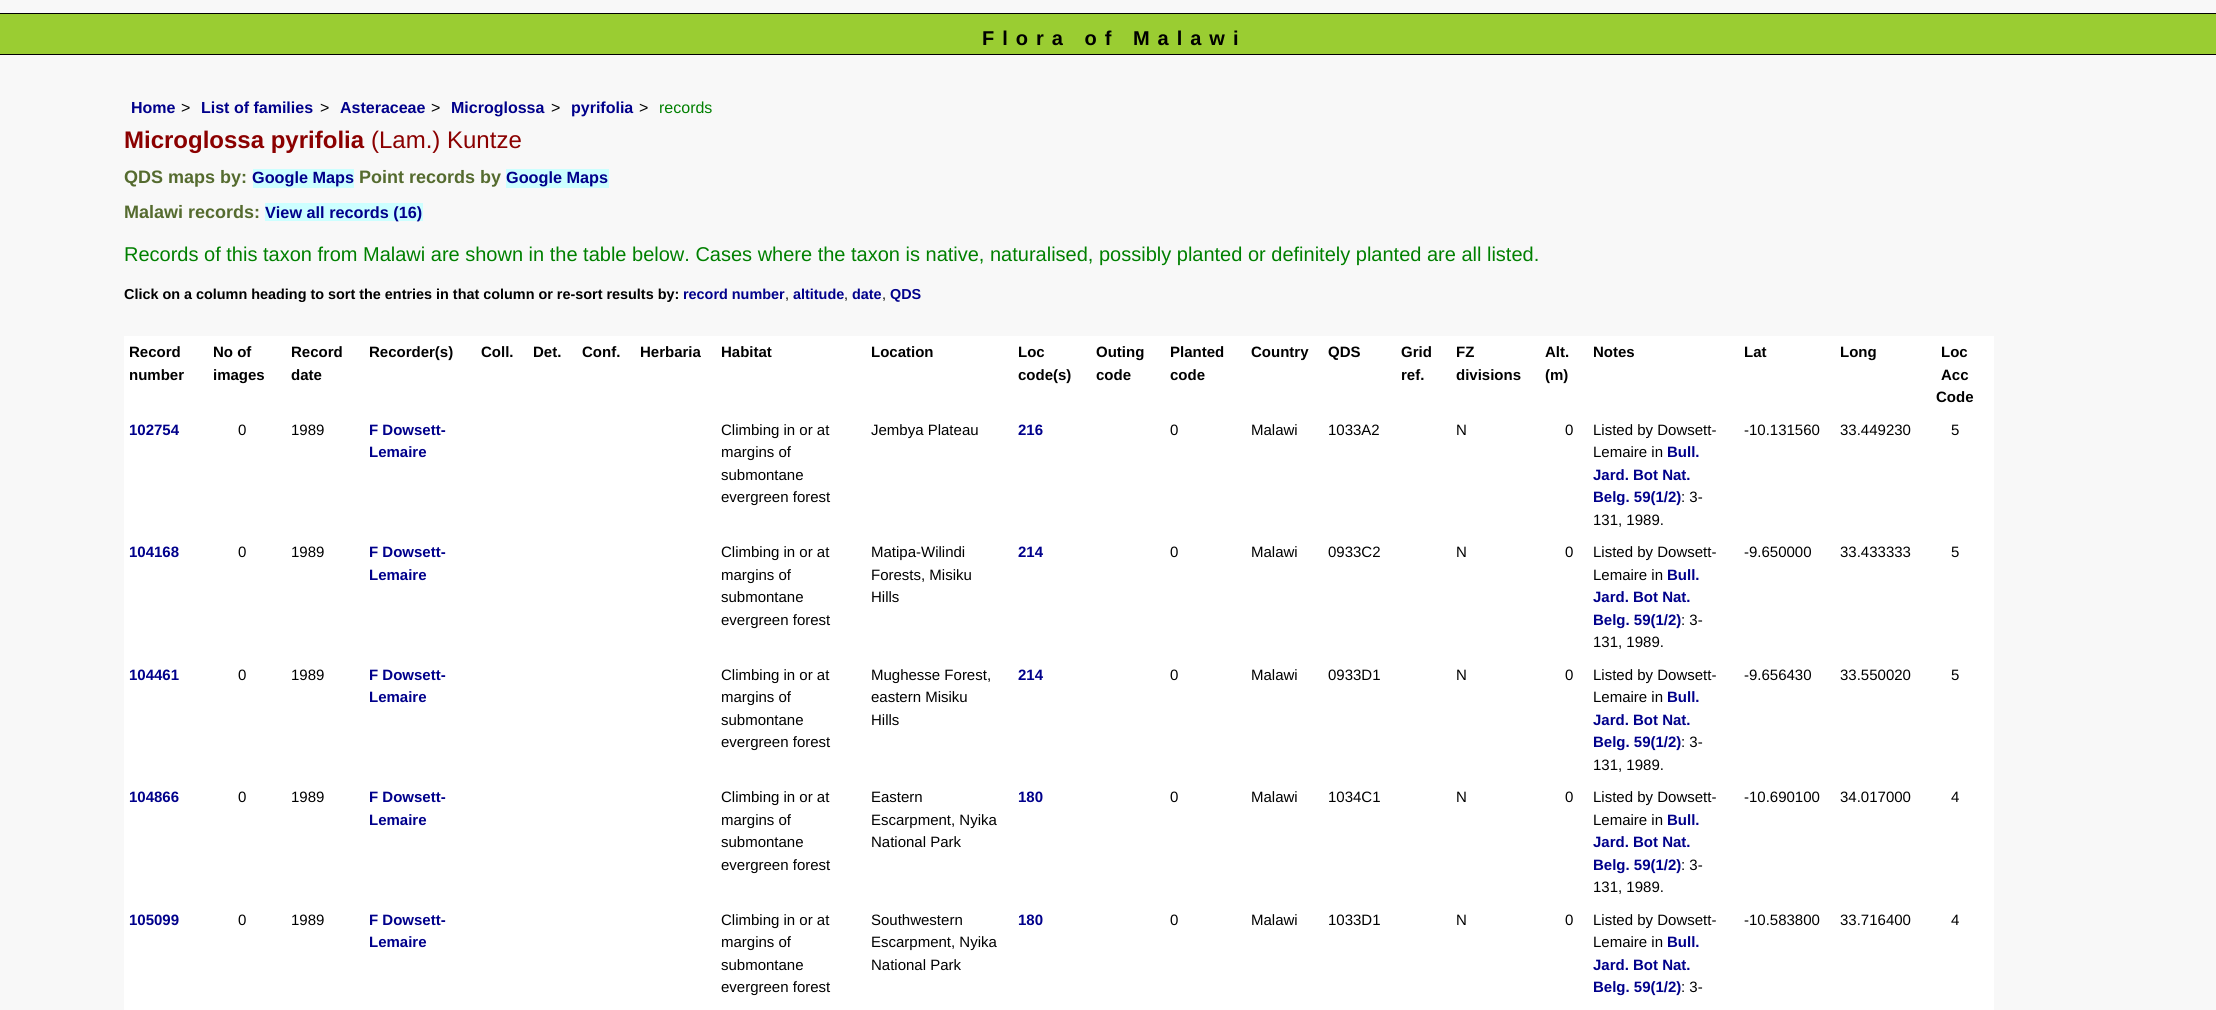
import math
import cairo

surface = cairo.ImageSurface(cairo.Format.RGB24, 2216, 1010)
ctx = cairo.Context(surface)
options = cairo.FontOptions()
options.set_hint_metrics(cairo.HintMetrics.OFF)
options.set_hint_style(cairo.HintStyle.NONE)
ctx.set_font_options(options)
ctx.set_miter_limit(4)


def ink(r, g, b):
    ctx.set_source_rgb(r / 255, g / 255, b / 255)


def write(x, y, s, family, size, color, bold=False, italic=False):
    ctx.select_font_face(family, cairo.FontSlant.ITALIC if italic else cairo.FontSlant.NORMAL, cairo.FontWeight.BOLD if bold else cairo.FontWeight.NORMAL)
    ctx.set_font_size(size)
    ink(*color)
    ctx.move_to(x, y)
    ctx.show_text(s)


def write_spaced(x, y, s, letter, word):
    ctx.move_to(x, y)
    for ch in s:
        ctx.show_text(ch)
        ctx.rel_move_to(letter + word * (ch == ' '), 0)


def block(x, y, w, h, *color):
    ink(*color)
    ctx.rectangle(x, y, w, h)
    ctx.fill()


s1 = dict(family="Liberation Sans", size=16, color=(0, 0, 139), bold=True)
s2 = dict(family="Liberation Sans", size=16, color=(0, 0, 0))
s3 = dict(family="Liberation Sans", size=16, color=(0, 128, 0))
s4 = dict(family="Liberation Sans", size=24, color=(139, 0, 0), bold=True)
s5 = dict(family="Liberation Sans", size=24, color=(139, 0, 0))
s6 = dict(family="Liberation Sans", size=18, color=(85, 107, 47), bold=True)
s7 = dict(family="Liberation Sans", size=16.25, color=(0, 0, 139), bold=True)
s8 = dict(family="Liberation Sans", size=20, color=(0, 128, 0))
s9 = dict(family="Liberation Sans", size=14.4, color=(0, 0, 0), bold=True)
s10 = dict(family="Liberation Sans", size=14.4, color=(0, 0, 139), bold=True)
s11 = dict(family="Liberation Sans", size=14.4, color=(0, 0, 0))
s12 = dict(family="Liberation Sans", size=15, color=(0, 0, 0), bold=True)
s13 = dict(family="Liberation Sans", size=15, color=(0, 0, 139), bold=True)
s14 = dict(family="Liberation Sans", size=15, color=(0, 0, 0))

ink(248, 248, 248)
ctx.paint()
block(0, 14, 2216, 40, 154, 205, 50)
block(0, 13, 2216, 1, 0, 0, 0)
block(0, 54, 2216, 1, 0, 0, 0)
ctx.select_font_face("Liberation Sans", cairo.FontSlant.NORMAL, cairo.FontWeight.BOLD)
ctx.set_font_size(20)
write_spaced(982, 45, "Flora of Malawi", 8, 0)
write(131, 113, "Home", **s1)
write(181, 113, ">", **s2)
write(201, 113, "List of families", **s1)
write(320, 113, ">", **s2)
write(340, 113, "Asteraceae", **s1)
write(431, 113, ">", **s2)
write(451, 113, "Microglossa", **s1)
write(551, 113, ">", **s2)
write(571, 113, "pyrifolia", **s1)
write(639, 113, ">", **s2)
write(659, 113, "records", **s3)
write(124, 148, "Microglossa pyrifolia", **s4)
write(371, 148, "(Lam.) Kuntze", **s5)
write(124, 183, "QDS maps by:", **s6)
block(253, 169, 101, 19, 204, 255, 255)
write(252, 183, "Google Maps", **s7)
write(359, 183, "Point records by", **s6)
block(506, 169, 103, 19, 204, 255, 255)
write(506, 183, "Google Maps", **s7)
write(124, 218, "Malawi records:", **s6)
block(265, 203, 158, 18, 204, 255, 255)
write(265, 218, "View all records (16)", **s7)
write(124, 261, "Records of this taxon from Malawi are shown in the table below. Cases where the taxon is native, naturalised, possibly planted or definitely planted are all listed.", **s8)
write(124, 299, "Click on a column heading to sort the entries in that column or re-sort results by:", **s9)
write(683, 299, "record number", **s10)
write(785, 299, ",", **s11)
write(793, 299, "altitude", **s10)
write(844, 299, ",", **s11)
write(852, 299, "date", **s10)
write(882, 299, ",", **s11)
write(890, 299, "QDS", **s10)
block(124, 336, 1870, 674, 255, 255, 255)
write(129, 357, "Record", **s12)
write(129, 380, "number", **s12)
write(213, 357, "No of", **s12)
write(213, 380, "images", **s12)
write(291, 357, "Record", **s12)
write(291, 380, "date", **s12)
write(369, 357, "Recorder(s)", **s12)
write(481, 357, "Coll.", **s12)
write(533, 357, "Det.", **s12)
write(582, 357, "Conf.", **s12)
write(640, 357, "Herbaria", **s12)
write(721, 357, "Habitat", **s12)
write(871, 357, "Location", **s12)
write(1018, 357, "Loc", **s12)
write(1018, 380, "code(s)", **s12)
write(1096, 357, "Outing", **s12)
write(1096, 380, "code", **s12)
write(1170, 357, "Planted", **s12)
write(1170, 380, "code", **s12)
write(1251, 357, "Country", **s12)
write(1328, 357, "QDS", **s12)
write(1401, 357, "Grid", **s12)
write(1401, 380, "ref.", **s12)
write(1456, 357, "FZ", **s12)
write(1456, 380, "divisions", **s12)
write(1545, 357, "Alt.", **s12)
write(1545, 380, "(m)", **s12)
write(1593, 357, "Notes", **s12)
write(1744, 357, "Lat", **s12)
write(1840, 357, "Long", **s12)
write(1941, 357, "Loc", **s12)
write(1941, 380, "Acc", **s12)
write(1936, 402, "Code", **s12)
write(129, 435, "102754", **s13)
write(238, 435, "0", **s14)
write(291, 435, "1989", **s14)
write(369, 435, "F Dowsett-", **s13)
write(369, 457, "Lemaire", **s13)
write(721, 435, "Climbing in or at", **s14)
write(721, 457, "margins of", **s14)
write(721, 480, "submontane", **s14)
write(721, 502, "evergreen forest", **s14)
write(871, 435, "Jembya Plateau", **s14)
write(1018, 435, "216", **s13)
write(1170, 435, "0", **s14)
write(1251, 435, "Malawi", **s14)
write(1328, 435, "1033A2", **s14)
write(1456, 435, "N", **s14)
write(1565, 435, "0", **s14)
write(1593, 435, "Listed by Dowsett-", **s14)
write(1593, 457, "Lemaire in", **s14)
write(1667, 457, "Bull.", **s13)
write(1593, 480, "Jard. Bot Nat.", **s13)
write(1593, 502, "Belg. 59(1/2)", **s13)
write(1681, 502, ": 3-", **s14)
write(1593, 525, "131, 1989.", **s14)
write(1744, 435, "-10.131560", **s14)
write(1840, 435, "33.449230", **s14)
write(1951, 435, "5", **s14)
write(129, 557, "104168", **s13)
write(238, 557, "0", **s14)
write(291, 557, "1989", **s14)
write(369, 557, "F Dowsett-", **s13)
write(369, 580, "Lemaire", **s13)
write(721, 557, "Climbing in or at", **s14)
write(721, 580, "margins of", **s14)
write(721, 602, "submontane", **s14)
write(721, 625, "evergreen forest", **s14)
write(871, 557, "Matipa-Wilindi", **s14)
write(871, 580, "Forests, Misiku", **s14)
write(871, 602, "Hills", **s14)
write(1018, 557, "214", **s13)
write(1170, 557, "0", **s14)
write(1251, 557, "Malawi", **s14)
write(1328, 557, "0933C2", **s14)
write(1456, 557, "N", **s14)
write(1565, 557, "0", **s14)
write(1593, 557, "Listed by Dowsett-", **s14)
write(1593, 580, "Lemaire in", **s14)
write(1667, 580, "Bull.", **s13)
write(1593, 602, "Jard. Bot Nat.", **s13)
write(1593, 625, "Belg. 59(1/2)", **s13)
write(1681, 625, ": 3-", **s14)
write(1593, 647, "131, 1989.", **s14)
write(1744, 557, "-9.650000", **s14)
write(1840, 557, "33.433333", **s14)
write(1951, 557, "5", **s14)
write(129, 680, "104461", **s13)
write(238, 680, "0", **s14)
write(291, 680, "1989", **s14)
write(369, 680, "F Dowsett-", **s13)
write(369, 702, "Lemaire", **s13)
write(721, 680, "Climbing in or at", **s14)
write(721, 702, "margins of", **s14)
write(721, 725, "submontane", **s14)
write(721, 747, "evergreen forest", **s14)
write(871, 680, "Mughesse Forest,", **s14)
write(871, 702, "eastern Misiku", **s14)
write(871, 725, "Hills", **s14)
write(1018, 680, "214", **s13)
write(1170, 680, "0", **s14)
write(1251, 680, "Malawi", **s14)
write(1328, 680, "0933D1", **s14)
write(1456, 680, "N", **s14)
write(1565, 680, "0", **s14)
write(1593, 680, "Listed by Dowsett-", **s14)
write(1593, 702, "Lemaire in", **s14)
write(1667, 702, "Bull.", **s13)
write(1593, 725, "Jard. Bot Nat.", **s13)
write(1593, 747, "Belg. 59(1/2)", **s13)
write(1681, 747, ": 3-", **s14)
write(1593, 770, "131, 1989.", **s14)
write(1744, 680, "-9.656430", **s14)
write(1840, 680, "33.550020", **s14)
write(1951, 680, "5", **s14)
write(129, 802, "104866", **s13)
write(238, 802, "0", **s14)
write(291, 802, "1989", **s14)
write(369, 802, "F Dowsett-", **s13)
write(369, 825, "Lemaire", **s13)
write(721, 802, "Climbing in or at", **s14)
write(721, 825, "margins of", **s14)
write(721, 847, "submontane", **s14)
write(721, 870, "evergreen forest", **s14)
write(871, 802, "Eastern", **s14)
write(871, 825, "Escarpment, Nyika", **s14)
write(871, 847, "National Park", **s14)
write(1018, 802, "180", **s13)
write(1170, 802, "0", **s14)
write(1251, 802, "Malawi", **s14)
write(1328, 802, "1034C1", **s14)
write(1456, 802, "N", **s14)
write(1565, 802, "0", **s14)
write(1593, 802, "Listed by Dowsett-", **s14)
write(1593, 825, "Lemaire in", **s14)
write(1667, 825, "Bull.", **s13)
write(1593, 847, "Jard. Bot Nat.", **s13)
write(1593, 870, "Belg. 59(1/2)", **s13)
write(1681, 870, ": 3-", **s14)
write(1593, 892, "131, 1989.", **s14)
write(1744, 802, "-10.690100", **s14)
write(1840, 802, "34.017000", **s14)
write(1951, 802, "4", **s14)
write(129, 925, "105099", **s13)
write(238, 925, "0", **s14)
write(291, 925, "1989", **s14)
write(369, 925, "F Dowsett-", **s13)
write(369, 947, "Lemaire", **s13)
write(721, 925, "Climbing in or at", **s14)
write(721, 947, "margins of", **s14)
write(721, 970, "submontane", **s14)
write(721, 992, "evergreen forest", **s14)
write(871, 925, "Southwestern", **s14)
write(871, 947, "Escarpment, Nyika", **s14)
write(871, 970, "National Park", **s14)
write(1018, 925, "180", **s13)
write(1170, 925, "0", **s14)
write(1251, 925, "Malawi", **s14)
write(1328, 925, "1033D1", **s14)
write(1456, 925, "N", **s14)
write(1565, 925, "0", **s14)
write(1593, 925, "Listed by Dowsett-", **s14)
write(1593, 947, "Lemaire in", **s14)
write(1667, 947, "Bull.", **s13)
write(1593, 970, "Jard. Bot Nat.", **s13)
write(1593, 992, "Belg. 59(1/2)", **s13)
write(1681, 992, ": 3-", **s14)
write(1744, 925, "-10.583800", **s14)
write(1840, 925, "33.716400", **s14)
write(1951, 925, "4", **s14)
surface.write_to_png("screenshot.png")
